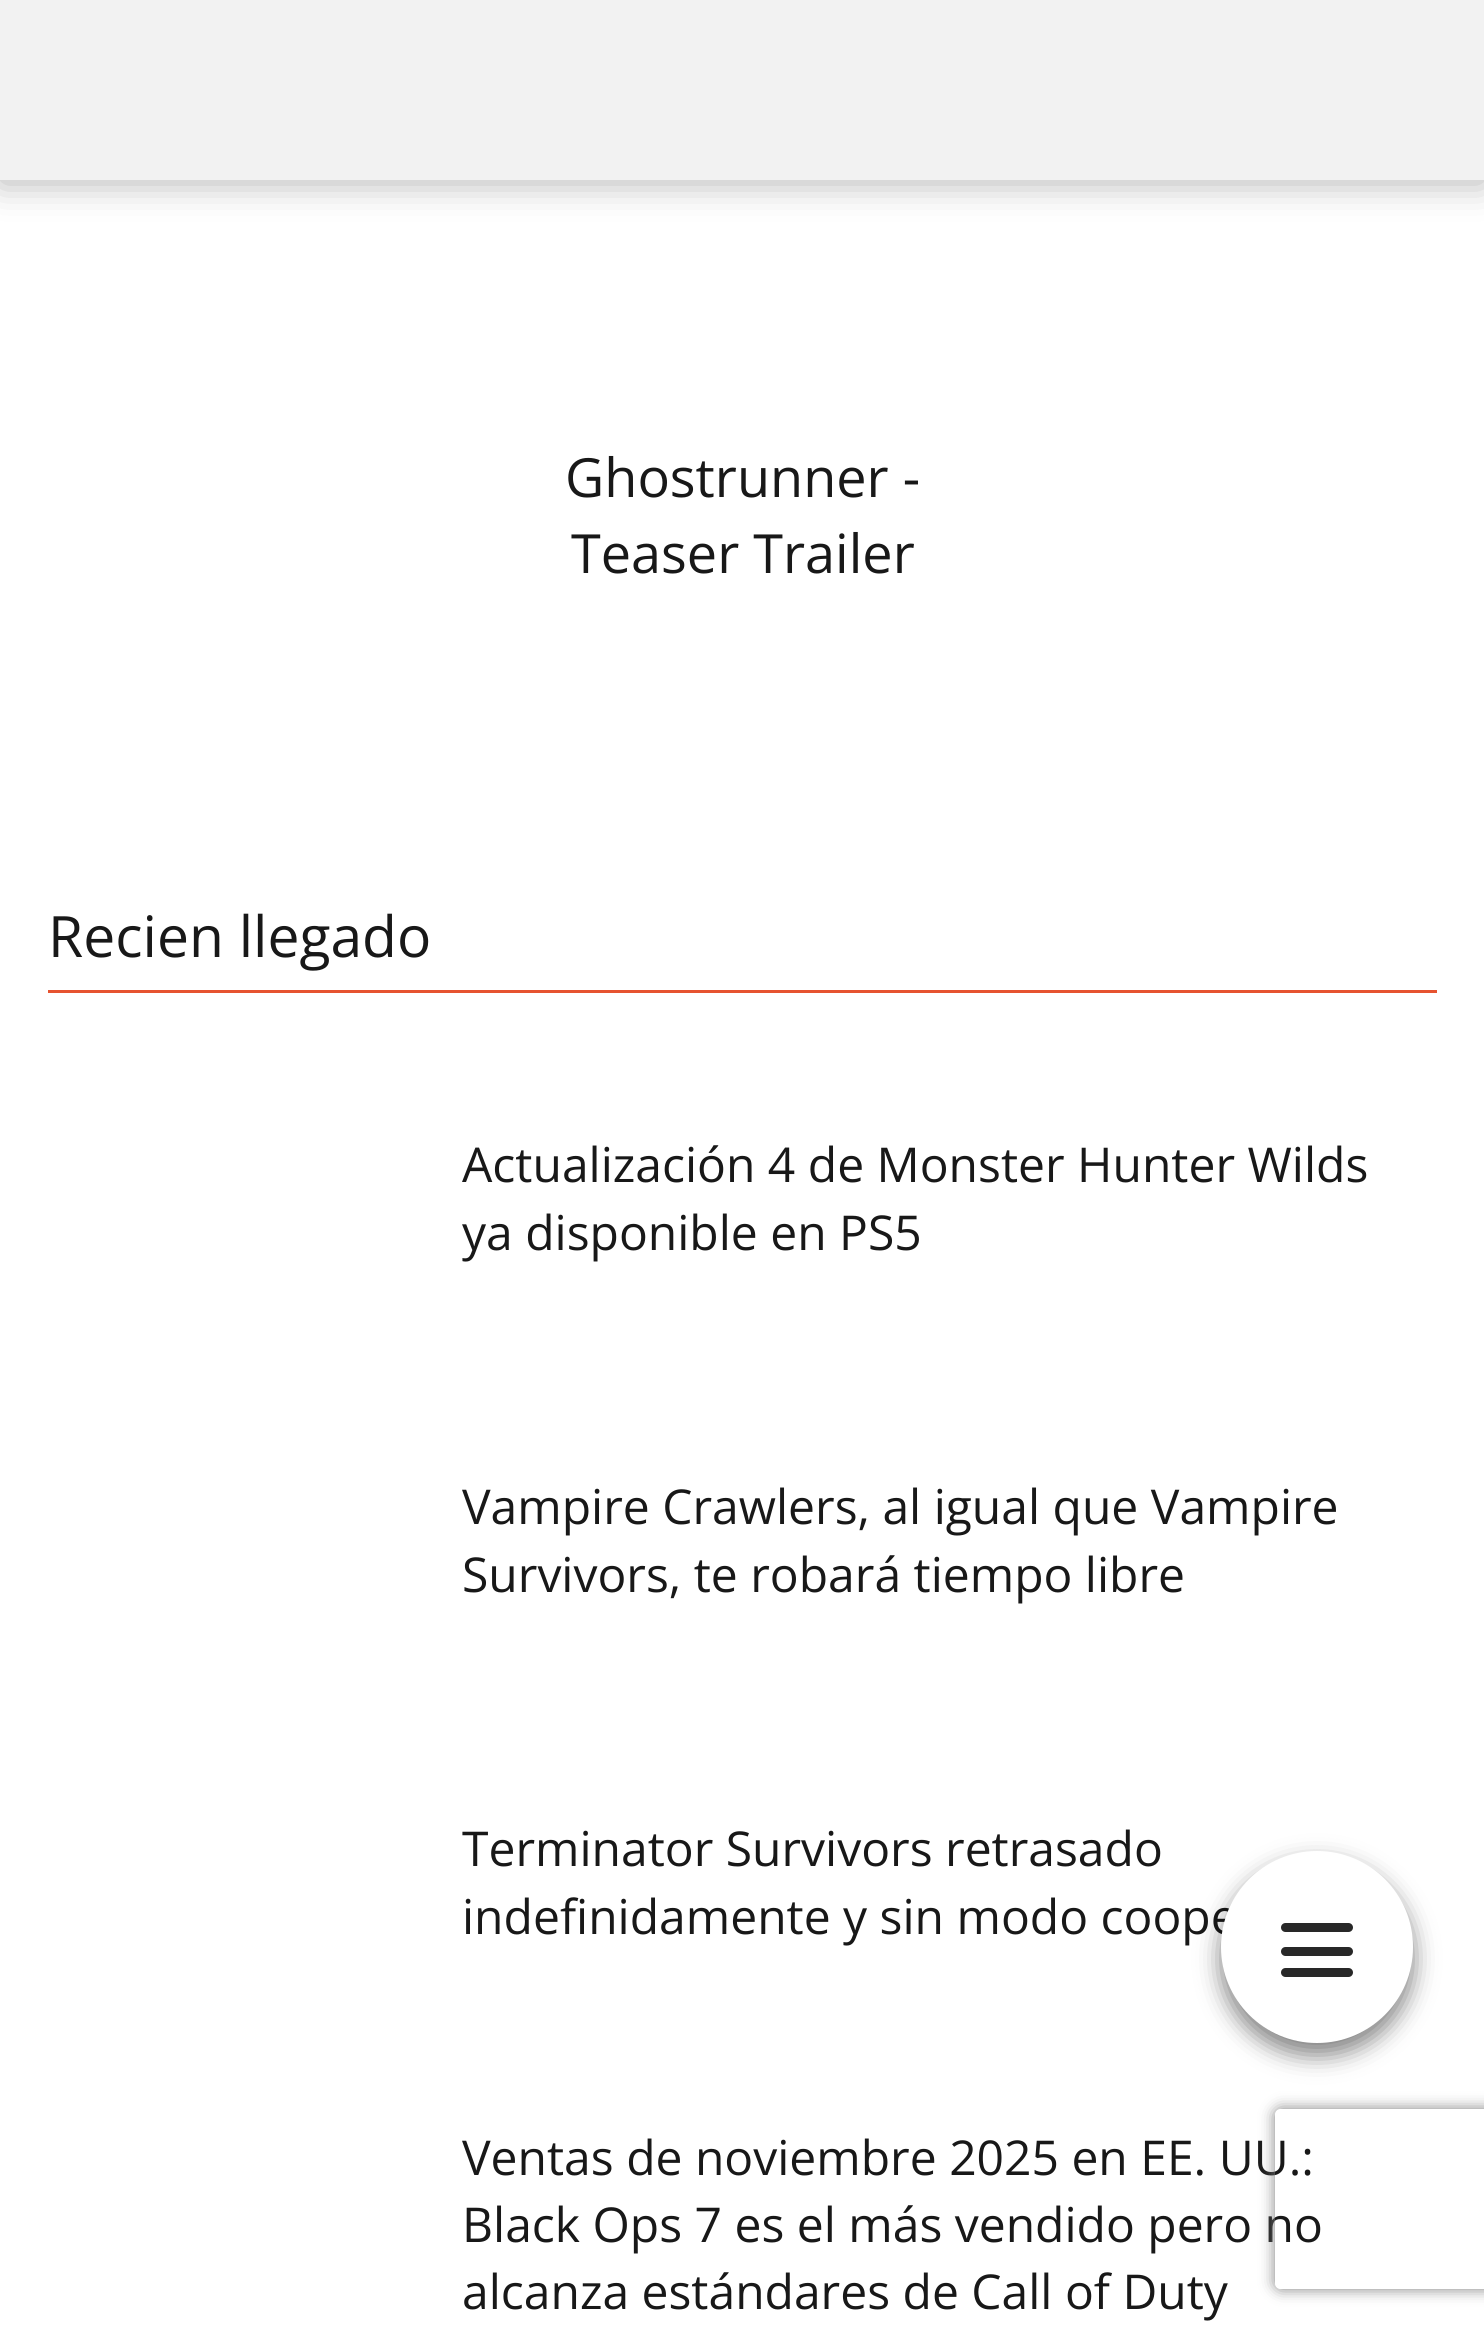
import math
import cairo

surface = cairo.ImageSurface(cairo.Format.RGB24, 1484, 2331)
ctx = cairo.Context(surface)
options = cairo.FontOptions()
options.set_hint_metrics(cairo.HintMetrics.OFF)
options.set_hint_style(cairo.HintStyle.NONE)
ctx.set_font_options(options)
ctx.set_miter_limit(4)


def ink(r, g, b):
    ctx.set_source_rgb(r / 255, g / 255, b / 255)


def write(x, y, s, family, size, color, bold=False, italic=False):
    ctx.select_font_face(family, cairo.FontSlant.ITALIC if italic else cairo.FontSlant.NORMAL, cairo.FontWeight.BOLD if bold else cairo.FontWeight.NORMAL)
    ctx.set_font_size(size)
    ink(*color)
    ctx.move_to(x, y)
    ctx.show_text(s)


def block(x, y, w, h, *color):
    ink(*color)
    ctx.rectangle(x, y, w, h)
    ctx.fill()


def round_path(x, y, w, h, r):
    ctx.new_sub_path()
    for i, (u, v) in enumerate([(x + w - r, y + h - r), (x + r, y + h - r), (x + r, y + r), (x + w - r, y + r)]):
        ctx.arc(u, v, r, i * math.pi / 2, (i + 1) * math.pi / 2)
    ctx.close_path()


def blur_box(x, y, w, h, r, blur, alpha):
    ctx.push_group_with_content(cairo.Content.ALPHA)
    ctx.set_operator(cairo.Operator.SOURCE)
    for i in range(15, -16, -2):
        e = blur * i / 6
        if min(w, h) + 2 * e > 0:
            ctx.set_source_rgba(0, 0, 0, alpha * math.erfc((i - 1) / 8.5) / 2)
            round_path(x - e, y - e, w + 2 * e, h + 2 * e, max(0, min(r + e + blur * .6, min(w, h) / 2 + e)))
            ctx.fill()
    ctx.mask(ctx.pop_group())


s1 = dict(family="Open Sans", size=54, color=(24, 24, 24))
s2 = dict(family="Open Sans", size=57, color=(24, 24, 24))
s3 = dict(family="Open Sans", size=48, color=(24, 24, 24))

ink(255, 255, 255)
ctx.paint()
ink(0, 0, 0)
blur_box(0, 3, 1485, 180, 0, 18, 0.3)
block(0, 0, 1484, 180, 242, 242, 242)
write(565, 497, "Ghostrunner -", **s1)
write(571, 573, "Teaser Trailer", **s1)
write(48, 957, "Recien llegado", **s2)
block(48, 990, 1389, 3, 230, 83, 48)
write(462, 1182, "Actualización 4 de Monster Hunter Wilds", **s3)
write(462, 1250, "ya disponible en PS5", **s3)
write(462, 1524, "Vampire Crawlers, al igual que Vampire", **s3)
write(462, 1592, "Survivors, te robará tiempo libre", **s3)
write(462, 1866, "Terminator Survivors retrasado", **s3)
write(462, 1934, "indefinidamente y sin modo coope", **s3)
write(462, 2175, "Ventas de noviembre 2025 en EE. UU.:", **s3)
write(462, 2242, "Black Ops 7 es el más vendido pero no", **s3)
write(462, 2309, "alcanza estándares de Call of Duty", **s3)
ink(0, 0, 0)
blur_box(1221, 1863, 192, 192, 96, 12, 0.5)
ink(255, 255, 255)
ctx.arc(1317, 1947, 96, 0, 2 * math.pi)
ctx.fill()
ink(40, 40, 40)
round_path(1281, 1923, 72, 9, 4.5)
ctx.fill()
round_path(1281, 1947, 72, 9, 4.5)
ctx.fill()
round_path(1281, 1968, 72, 9, 4.5)
ctx.fill()
ctx.save()
ctx.set_fill_rule(cairo.FillRule.EVEN_ODD)
ctx.new_path()
ctx.move_to(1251, 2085)
ctx.line_to(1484, 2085)
ctx.line_to(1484, 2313)
ctx.line_to(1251, 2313)
ctx.close_path()
ctx.move_to(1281, 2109)
ctx.line_to(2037, 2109)
ctx.curve_to(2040.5, 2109, 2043, 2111.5, 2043, 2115)
ctx.line_to(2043, 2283)
ctx.curve_to(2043, 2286.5, 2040.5, 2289, 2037, 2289)
ctx.line_to(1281, 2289)
ctx.curve_to(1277.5, 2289, 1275, 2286.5, 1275, 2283)
ctx.line_to(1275, 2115)
ctx.curve_to(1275, 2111.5, 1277.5, 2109, 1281, 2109)
ctx.close_path()
ctx.clip()
ink(128, 128, 128)
blur_box(1275, 2109, 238, 180, 6, 7.5, 1)
ctx.restore()
surface.write_to_png("screenshot.png")
